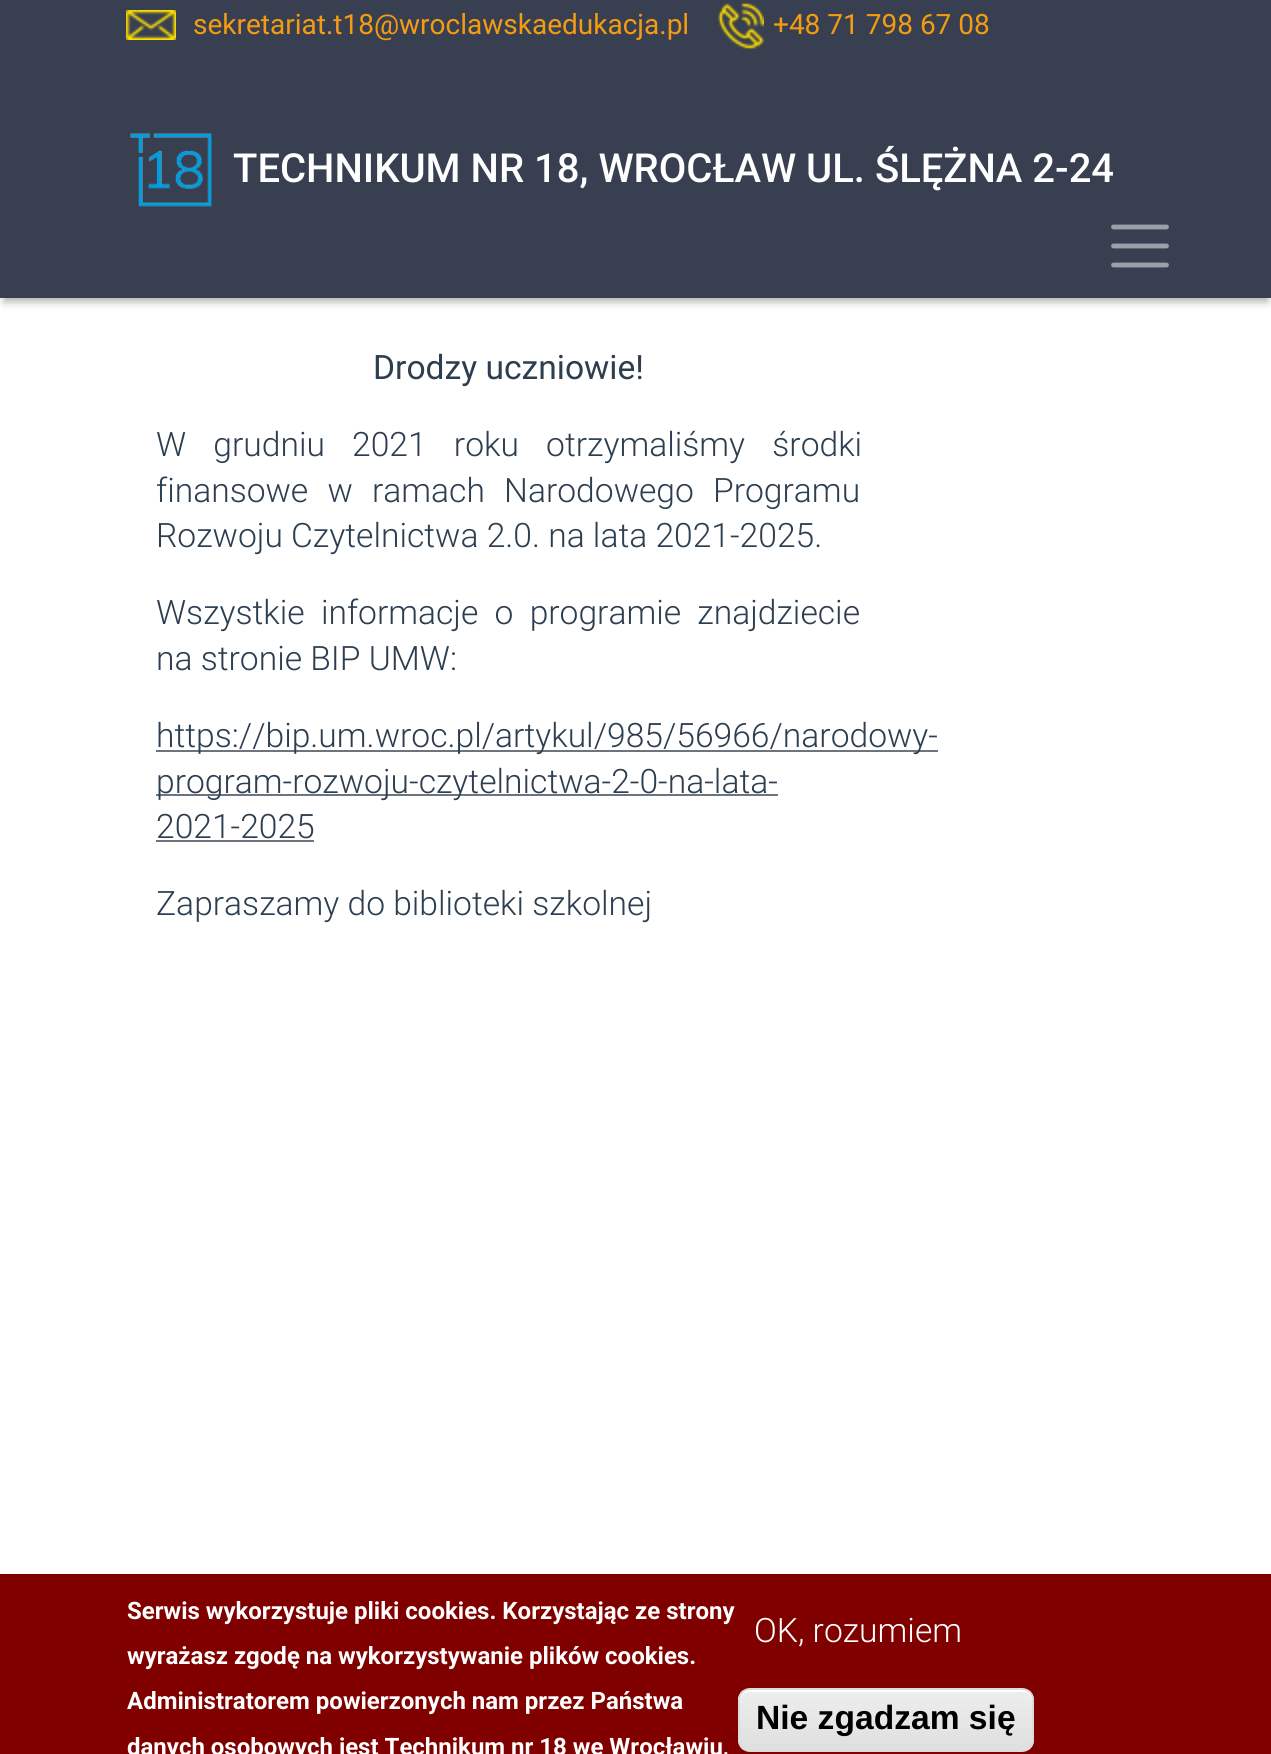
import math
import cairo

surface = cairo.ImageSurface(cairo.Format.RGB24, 1271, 1754)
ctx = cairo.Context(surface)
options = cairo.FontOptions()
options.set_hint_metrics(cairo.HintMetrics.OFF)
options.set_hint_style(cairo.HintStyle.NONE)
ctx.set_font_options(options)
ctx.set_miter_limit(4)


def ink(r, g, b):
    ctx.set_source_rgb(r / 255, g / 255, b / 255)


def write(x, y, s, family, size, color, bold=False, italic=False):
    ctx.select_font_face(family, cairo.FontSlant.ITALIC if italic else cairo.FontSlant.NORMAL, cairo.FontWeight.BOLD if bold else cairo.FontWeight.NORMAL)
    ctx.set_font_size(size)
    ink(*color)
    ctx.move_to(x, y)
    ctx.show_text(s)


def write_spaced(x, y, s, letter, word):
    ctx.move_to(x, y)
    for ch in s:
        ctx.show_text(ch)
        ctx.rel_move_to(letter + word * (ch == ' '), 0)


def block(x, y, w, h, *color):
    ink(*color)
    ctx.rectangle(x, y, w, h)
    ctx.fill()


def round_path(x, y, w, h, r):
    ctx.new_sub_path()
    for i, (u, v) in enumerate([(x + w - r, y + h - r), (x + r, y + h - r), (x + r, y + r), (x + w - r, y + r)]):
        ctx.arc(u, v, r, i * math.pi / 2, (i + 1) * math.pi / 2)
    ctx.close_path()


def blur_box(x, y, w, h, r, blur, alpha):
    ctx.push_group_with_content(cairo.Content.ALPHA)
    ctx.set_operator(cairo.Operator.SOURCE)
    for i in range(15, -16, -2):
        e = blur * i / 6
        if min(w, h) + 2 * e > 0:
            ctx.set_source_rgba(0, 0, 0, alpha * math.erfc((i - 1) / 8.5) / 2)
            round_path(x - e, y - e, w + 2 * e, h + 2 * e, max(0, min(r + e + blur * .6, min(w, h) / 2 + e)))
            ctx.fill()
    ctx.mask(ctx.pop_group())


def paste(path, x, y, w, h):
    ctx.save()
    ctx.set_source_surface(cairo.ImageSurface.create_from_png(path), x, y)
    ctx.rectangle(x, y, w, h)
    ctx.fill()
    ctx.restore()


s1 = dict(family="Roboto", size=28, color=(243, 156, 18))
s2 = dict(family="Roboto Medium", size=40, color=(255, 255, 255))
s3 = dict(family="Roboto", size=33.6, color=(44, 62, 80))
s4 = dict(family="Roboto Light", size=33.6, color=(44, 62, 80))
s5 = dict(family="Roboto", size=24, color=(255, 255, 255), bold=True)
s6 = dict(family="Roboto Light", size=33.6, color=(255, 255, 255))
s7 = dict(family="Liberation Sans", size=33.6, color=(0, 0, 0), bold=True)

ink(255, 255, 255)
ctx.paint()
block(0, 0, 1271, 114, 55, 63, 81)
paste("pic1.png", 126, 10, 50, 30)
write(193, 34, "sekretariat.t18@wroclawskaedukacja.pl", **s1)
paste("pic2.png", 718, 2, 46, 48)
write(773, 34, "+48 71 798 67 08", **s1)
ink(0, 0, 0)
blur_box(4, 126, 1264, 176, 0, 4, 0.3)
block(0, 114, 1271, 184, 55, 63, 81)
paste("pic3.png", 130, 133, 82, 74)
write(233, 182, "TECHNIKUM NR 18, WROCŁAW UL. ŚLĘŻNA 2-24", **s2)
ctx.new_path()
ctx.move_to(1113.5, 227)
ctx.line_to(1166.5, 227)
ctx.move_to(1113.5, 246)
ctx.line_to(1166.5, 246)
ctx.move_to(1113.5, 265)
ctx.line_to(1166.5, 265)
ink(155, 159, 168)
ctx.set_line_width(4.8)
ctx.set_line_cap(cairo.LineCap.ROUND)
ctx.stroke()
write(373, 379, "Drodzy uczniowie!", **s3)
ctx.select_font_face("Roboto Light")
write_spaced(156, 456, "W grudniu 2021 roku otrzymaliśmy środki", 0, 19)
write_spaced(156, 502, "finansowe w ramach Narodowego Programu", 0, 11)
write(156, 547, "Rozwoju Czytelnictwa 2.0. na lata 2021-2025.", **s4)
write_spaced(156, 624, "Wszystkie informacje o programie znajdziecie", 0, 8)
write(156, 670, "na stronie BIP UMW:", **s4)
block(156, 750, 782, 2, 108, 117, 125)
write(156, 747, "https://bip.um.wroc.pl/artykul/985/56966/narodowy-", **s4)
block(156, 794, 622, 2, 108, 117, 125)
write(156, 793, "program-rozwoju-czytelnictwa-2-0-na-lata-", **s4)
write(156, 838, "2021-2025", **s4)
block(156, 840, 158, 2, 108, 117, 125)
write(156, 915, "Zapraszamy do biblioteki szkolnej", **s4)
block(0, 1574, 1271, 180, 128, 0, 0)
write(127, 1619, "Serwis wykorzystuje pliki cookies. Korzystając ze strony", **s5)
write(127, 1664, "wyrażasz zgodę na wykorzystywanie plików cookies.", **s5)
write(127, 1709, "Administratorem powierzonych nam przez Państwa", **s5)
write(127, 1755, "danych osobowych jest Technikum nr 18 we Wrocławiu,", **s5)
write(754, 1642, "OK, rozumiem", **s6)
ctx.save()
round_path(738, 1688, 296, 64, 12)
ctx.clip()
gradient = cairo.LinearGradient(886, 1690, 886, 1750)
gradient.add_color_stop_rgba(0.05, 0.929, 0.929, 0.929, 1)
gradient.add_color_stop_rgba(1, 0.875, 0.875, 0.875, 1)
ctx.set_source(gradient)
ctx.rectangle(738, 1690, 296, 60)
ctx.fill()
ctx.restore()
ctx.new_path()
ctx.move_to(750, 1692)
ctx.line_to(1022, 1692)
ctx.curve_to(1028, 1692, 1032, 1696, 1032, 1702)
ctx.line_to(1032, 1700)
ctx.curve_to(1032, 1694, 1028, 1690, 1022, 1690)
ctx.line_to(750, 1690)
ctx.curve_to(744, 1690, 740, 1694, 740, 1700)
ctx.line_to(740, 1702)
ctx.curve_to(740, 1696, 744, 1692, 750, 1692)
ctx.close_path()
ctx.fill()
round_path(739, 1689, 294, 62, 11)
ink(220, 220, 220)
ctx.set_line_width(2)
ctx.set_line_cap(cairo.LineCap.BUTT)
ctx.stroke()
write(756, 1729, "Nie zgadzam się", **s7)
surface.write_to_png("screenshot.png")
